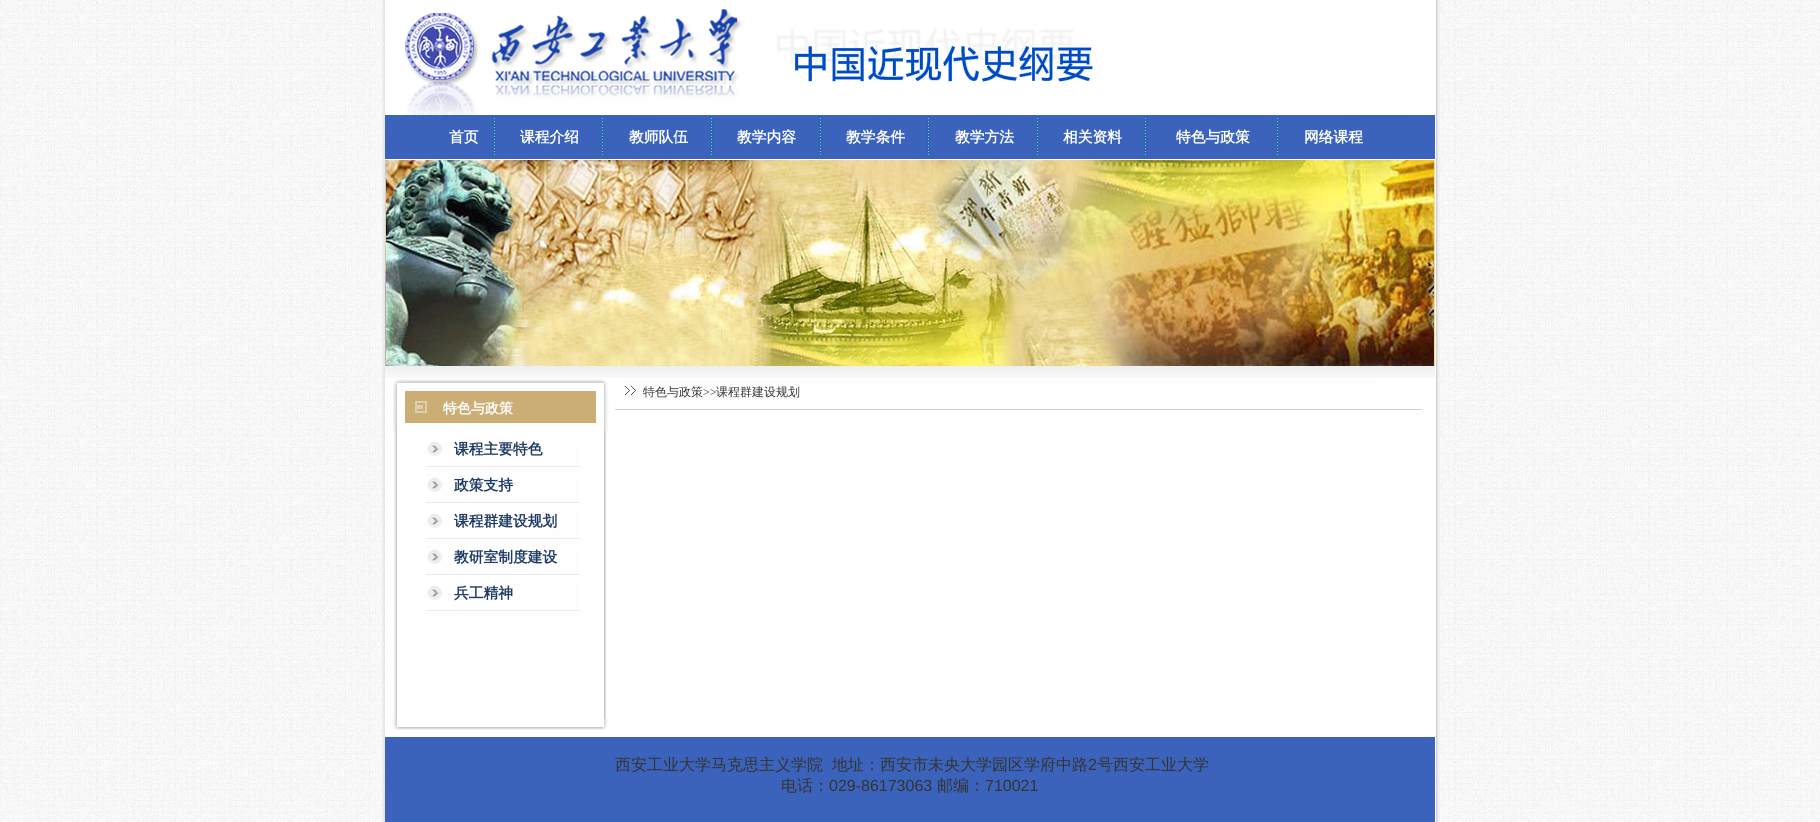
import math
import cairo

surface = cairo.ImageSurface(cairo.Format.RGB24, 1820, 822)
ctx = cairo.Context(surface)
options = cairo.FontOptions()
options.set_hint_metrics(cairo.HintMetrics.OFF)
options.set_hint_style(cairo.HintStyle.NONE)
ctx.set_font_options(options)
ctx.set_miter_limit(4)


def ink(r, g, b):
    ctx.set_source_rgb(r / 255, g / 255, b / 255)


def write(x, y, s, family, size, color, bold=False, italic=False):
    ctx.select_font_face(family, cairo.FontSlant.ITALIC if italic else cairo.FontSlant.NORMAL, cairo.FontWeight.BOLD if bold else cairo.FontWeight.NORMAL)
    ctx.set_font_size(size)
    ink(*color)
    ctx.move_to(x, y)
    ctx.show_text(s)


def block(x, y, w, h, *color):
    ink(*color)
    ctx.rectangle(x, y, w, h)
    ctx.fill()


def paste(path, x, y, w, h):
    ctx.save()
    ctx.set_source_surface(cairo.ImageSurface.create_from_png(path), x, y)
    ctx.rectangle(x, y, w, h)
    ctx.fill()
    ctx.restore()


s1 = dict(family="WenQuanYi Zen Hei", size=14.75, color=(255, 255, 255), bold=True)
s2 = dict(family="WenQuanYi Zen Hei Medium", size=12, color=(51, 51, 51))
s3 = dict(family="Liberation Serif", size=12, color=(51, 51, 51))
s4 = dict(family="WenQuanYi Zen Hei", size=14, color=(255, 255, 255), bold=True)
s5 = dict(family="WenQuanYi Zen Hei", size=14.75, color=(32, 60, 101), bold=True)
s6 = dict(family="WenQuanYi Zen Hei Medium", size=16, color=(51, 51, 51))
s7 = dict(family="Liberation Sans", size=16, color=(51, 51, 51))

ink(255, 255, 255)
ctx.paint()
paste("pic1.png", 0, 0, 1820, 822)
paste("pic2.png", 380, 0, 1060, 822)
paste("pic3.png", 385, 0, 708, 115)
paste("pic4.png", 385, 115, 1050, 44)
write(449, 142, "首页", **s1)
paste("pic5.png", 493, 117, 3, 39)
write(520, 142, "课程介绍", **s1)
paste("pic5.png", 601, 117, 3, 39)
write(629, 142, "教师队伍", **s1)
paste("pic5.png", 710, 117, 3, 39)
write(737, 142, "教学内容", **s1)
paste("pic5.png", 819, 117, 3, 39)
write(846, 142, "教学条件", **s1)
paste("pic5.png", 927, 117, 3, 39)
write(955, 142, "教学方法", **s1)
paste("pic5.png", 1036, 117, 3, 39)
write(1063, 142, "相关资料", **s1)
paste("pic5.png", 1144, 117, 3, 39)
write(1176, 142, "特色与政策", **s1)
paste("pic5.png", 1276, 117, 3, 39)
write(1304, 142, "网络课程", **s1)
paste("pic6.png", 385, 159, 1050, 207)
paste("pic7.png", 613, 366, 822, 44)
write(643, 396, "特色与政策", **s2)
write(703, 396, ">>", **s3)
write(716, 396, "课程群建设规划", **s2)
paste("pic8.png", 385, 431, 222, 287)
paste("pic9.png", 385, 366, 228, 65)
write(443, 413, "特色与政策", **s4)
paste("pic10.png", 426, 442, 154, 169)
write(454, 454, "课程主要特色", **s5)
write(454, 490, "政策支持", **s5)
write(454, 526, "课程群建设规划", **s5)
write(454, 562, "教研室制度建设", **s5)
write(454, 598, "兵工精神", **s5)
paste("pic11.png", 385, 718, 223, 19)
block(385, 737, 1050, 85, 59, 99, 187)
write(615, 770, "西安工业大学马克思主义学院", **s6)
write(832, 770, "地址：西安市未央大学园区学府中路", **s6)
write(1088, 770, "2", **s7)
write(1097, 770, "号西安工业大学", **s6)
write(781, 791, "电话：", **s6)
write(829, 791, "029-86173063", **s7)
write(937, 791, "邮编：", **s6)
write(985, 791, "710021", **s7)
surface.write_to_png("screenshot.png")
